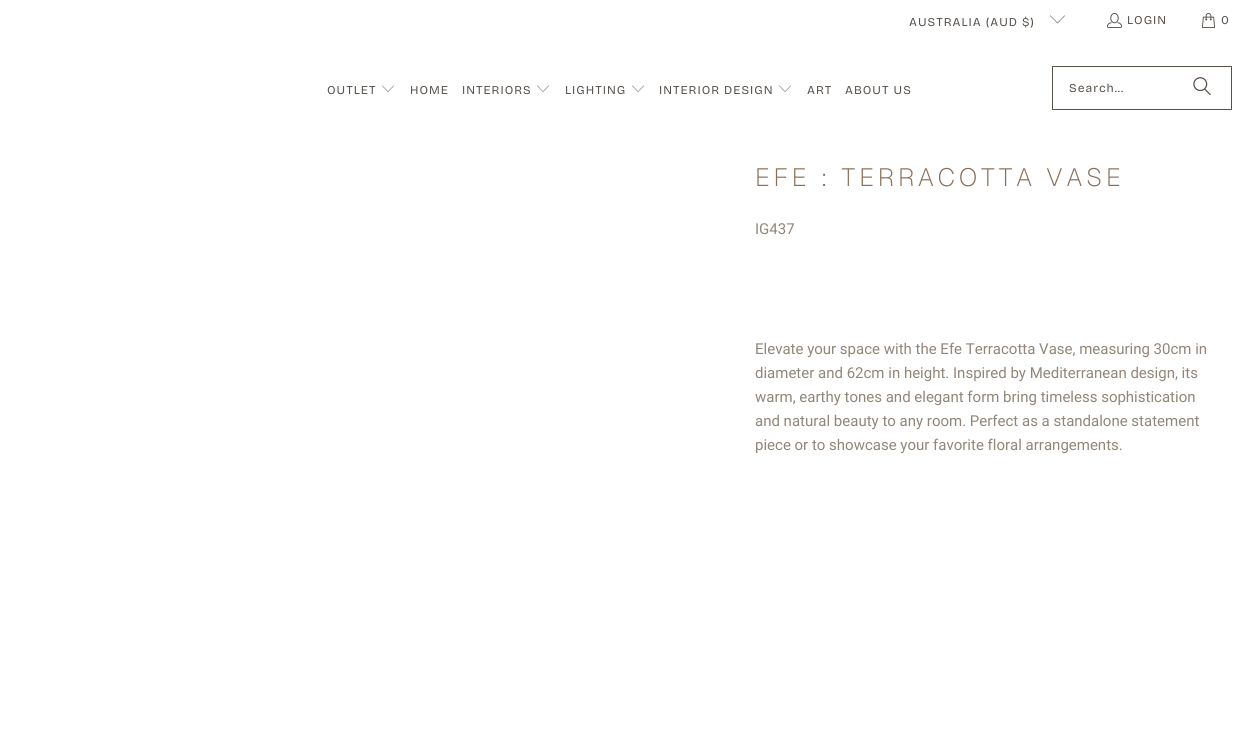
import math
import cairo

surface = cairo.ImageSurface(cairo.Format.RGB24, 1252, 736)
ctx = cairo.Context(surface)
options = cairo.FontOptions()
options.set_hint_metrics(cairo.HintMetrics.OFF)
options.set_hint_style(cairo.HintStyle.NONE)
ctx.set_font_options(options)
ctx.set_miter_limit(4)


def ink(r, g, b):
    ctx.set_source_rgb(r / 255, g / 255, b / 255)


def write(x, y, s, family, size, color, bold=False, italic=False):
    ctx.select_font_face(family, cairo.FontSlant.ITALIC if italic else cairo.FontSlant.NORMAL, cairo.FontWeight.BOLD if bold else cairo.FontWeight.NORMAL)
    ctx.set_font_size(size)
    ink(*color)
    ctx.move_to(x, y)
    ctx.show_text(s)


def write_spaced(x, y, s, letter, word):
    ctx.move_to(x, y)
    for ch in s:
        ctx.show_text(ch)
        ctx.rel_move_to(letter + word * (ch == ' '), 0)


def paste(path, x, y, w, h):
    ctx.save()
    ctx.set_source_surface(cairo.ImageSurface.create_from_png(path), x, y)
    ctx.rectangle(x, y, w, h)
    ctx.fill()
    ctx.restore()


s1 = dict(family="Roboto", size=15, color=(145, 134, 121))

ink(255, 255, 255)
ctx.paint()
ctx.select_font_face("Bricolage Grotesque")
ctx.set_font_size(12)
ink(88, 82, 77)
write_spaced(909, 26, "AUSTRALIA (AUD $)", 1, 0)
paste("pic1.png", 1050, 15, 15, 9)
paste("pic2.png", 1107, 12, 15, 16)
write_spaced(1127, 24, "LOGIN", 1, 0)
paste("pic3.png", 1201, 13, 15, 15)
write_spaced(1221, 24, "0", 1, 0)
write_spaced(327, 94, "OUTLET", 1, 0)
paste("pic4.png", 382, 85, 12, 7)
write_spaced(410, 94, "HOME", 1, 0)
write_spaced(462, 94, "INTERIORS", 1, 0)
paste("pic4.png", 537, 85, 12, 7)
write_spaced(565, 94, "LIGHTING", 1, 0)
paste("pic4.png", 632, 85, 12, 7)
write_spaced(659, 94, "INTERIOR DESIGN", 1, 0)
paste("pic4.png", 779, 85, 12, 7)
write_spaced(807, 94, "ART", 1, 0)
write_spaced(845, 94, "ABOUT US", 1, 0)
ctx.rectangle(1052.5, 66.5, 179, 43)
ctx.set_line_width(1)
ctx.stroke()
write_spaced(1069, 92, "Search...", 1, 0)
paste("pic5.png", 1193, 77, 18, 19)
ctx.select_font_face("Geist ExtraLight")
ctx.set_font_size(25)
ink(137, 111, 87)
write_spaced(755, 186, "EFE : TERRACOTTA VASE", 4, 0)
write(755, 234, "IG437", **s1)
write(755, 354, "Elevate your space with the Efe Terracotta Vase, measuring 30cm in", **s1)
write(755, 378, "diameter and 62cm in height. Inspired by Mediterranean design, its", **s1)
write(755, 402, "warm, earthy tones and elegant form bring timeless sophistication", **s1)
write(755, 426, "and natural beauty to any room. Perfect as a standalone statement", **s1)
write(755, 450, "piece or to showcase your favorite floral arrangements.", **s1)
surface.write_to_png("screenshot.png")
